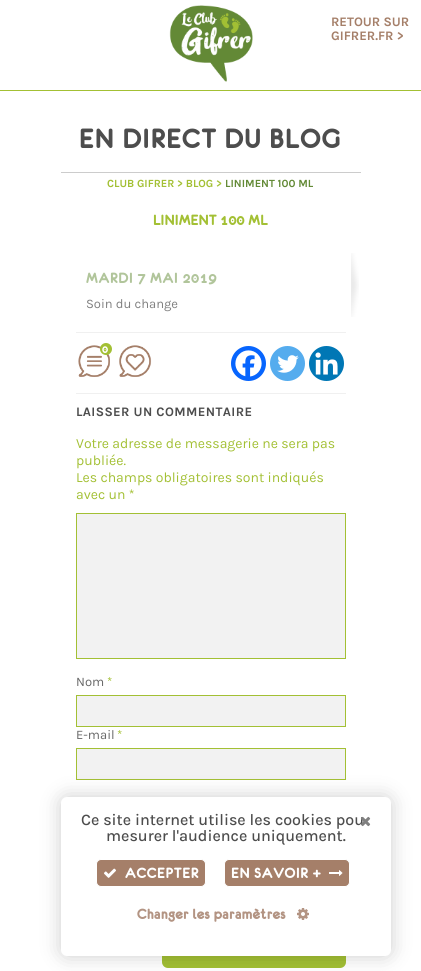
import math
import cairo

surface = cairo.ImageSurface(cairo.Format.RGB24, 421, 971)
ctx = cairo.Context(surface)
options = cairo.FontOptions()
options.set_hint_metrics(cairo.HintMetrics.OFF)
options.set_hint_style(cairo.HintStyle.NONE)
ctx.set_font_options(options)
ctx.set_miter_limit(4)


def ink(r, g, b):
    ctx.set_source_rgb(r / 255, g / 255, b / 255)


def write(x, y, s, family, size, color, bold=False, italic=False):
    ctx.select_font_face(family, cairo.FontSlant.ITALIC if italic else cairo.FontSlant.NORMAL, cairo.FontWeight.BOLD if bold else cairo.FontWeight.NORMAL)
    ctx.set_font_size(size)
    ink(*color)
    ctx.move_to(x, y)
    ctx.show_text(s)


def write_spaced(x, y, s, letter, word):
    ctx.move_to(x, y)
    for ch in s:
        ctx.show_text(ch)
        ctx.rel_move_to(letter + word * (ch == ' '), 0)


def block(x, y, w, h, *color):
    ink(*color)
    ctx.rectangle(x, y, w, h)
    ctx.fill()


def round_path(x, y, w, h, r):
    ctx.new_sub_path()
    for i, (u, v) in enumerate([(x + w - r, y + h - r), (x + r, y + h - r), (x + r, y + r), (x + w - r, y + r)]):
        ctx.arc(u, v, r, i * math.pi / 2, (i + 1) * math.pi / 2)
    ctx.close_path()


def blur_box(x, y, w, h, r, blur, alpha):
    ctx.push_group_with_content(cairo.Content.ALPHA)
    ctx.set_operator(cairo.Operator.SOURCE)
    for i in range(15, -16, -2):
        e = blur * i / 6
        if min(w, h) + 2 * e > 0:
            ctx.set_source_rgba(0, 0, 0, alpha * math.erfc((i - 1) / 8.5) / 2)
            round_path(x - e, y - e, w + 2 * e, h + 2 * e, max(0, min(r + e + blur * .6, min(w, h) / 2 + e)))
            ctx.fill()
    ctx.mask(ctx.pop_group())


def paste(path, x, y, w, h):
    ctx.save()
    ctx.set_source_surface(cairo.ImageSurface.create_from_png(path), x, y)
    ctx.rectangle(x, y, w, h)
    ctx.fill()
    ctx.restore()


s1 = dict(family="Karla", size=13, color=(165, 127, 105), bold=True)
s2 = dict(family="Karla", size=11, color=(163, 192, 52), bold=True)
s3 = dict(family="Karla", size=11, color=(99, 138, 54), bold=True)
s4 = dict(family="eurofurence", size=16, color=(163, 192, 52), bold=True)
s5 = dict(family="Karla", size=13, color=(128, 128, 128))
s6 = dict(family="eurofurence", size=12, color=(255, 255, 255), bold=True)
s7 = dict(family="Karla", size=14, color=(163, 192, 52))
s8 = dict(family="Karla", size=13, color=(102, 102, 102))
s9 = dict(family="Karla", size=13, color=(163, 192, 52))
s10 = dict(family="Karla Medium", size=16, color=(77, 77, 77))
s11 = dict(family="eurofurence", size=16, color=(179, 148, 131), bold=True)

ink(255, 255, 255)
ctx.paint()
block(0, 90, 421, 1, 163, 192, 52)
paste("pic1.png", 169, 5, 84, 77)
write(331, 26, "RETOUR SUR", **s1)
write(331, 40, "GIFRER.FR >", **s1)
ctx.select_font_face("eurofurence", cairo.FontSlant.NORMAL, cairo.FontWeight.BOLD)
ctx.set_font_size(30)
ink(77, 77, 77)
write_spaced(79, 148, "EN DIRECT DU BLOG", 0.9, 0)
block(61, 172, 300, 1, 204, 204, 204)
write(107, 187, "CLUB GIFRER > BLOG >", **s2)
write(225, 187, "LINIMENT 100 ML", **s3)
write(153, 225, "LINIMENT 100 ML", **s4)
ink(177, 197, 155)
write_spaced(86, 283, "MARDI 7 MAI 2019", 0.5, 0)
paste("pic2.png", 351, 253, 8, 64)
write(86, 308, "Soin du change", **s5)
block(76, 332, 270, 1, 240, 240, 240)
block(76, 393, 270, 1, 240, 240, 240)
paste("pic3.png", 78, 345, 32, 32)
ink(163, 192, 52)
ctx.arc(106, 349, 6, 0, 2 * math.pi)
ctx.fill()
write(102, 353, "0", **s6)
paste("pic4.png", 119, 345, 33, 32)
ink(7, 101, 254)
ctx.arc(248.5, 363.5, 17.5, 0, 2 * math.pi)
ctx.fill()
paste("pic5.png", 235, 350, 27, 27)
ink(85, 172, 238)
ctx.arc(287.5, 363.5, 17.5, 0, 2 * math.pi)
ctx.fill()
paste("pic6.png", 277, 355, 22, 18)
ink(0, 119, 181)
ctx.arc(326.5, 363.5, 17.5, 0, 2 * math.pi)
ctx.fill()
paste("pic7.png", 315, 352, 23, 23)
ctx.select_font_face("Karla", cairo.FontSlant.NORMAL, cairo.FontWeight.BOLD)
ctx.set_font_size(13)
ink(77, 77, 77)
write_spaced(76, 416, "LAISSER UN COMMENTAIRE", 0.4, 0)
write(76, 448, "Votre adresse de messagerie ne sera pas", **s7)
write(76, 465, "publiée.", **s7)
write(76, 482, "Les champs obligatoires sont indiqués", **s7)
write(76, 499, "avec un *", **s7)
ink(242, 242, 242)
ctx.rectangle(76.5, 513.5, 269, 145)
ctx.fill_preserve()
ink(163, 192, 52)
ctx.set_line_width(1)
ctx.stroke()
write(76, 686, "Nom", **s8)
write(107, 686, "*", **s9)
ink(242, 242, 242)
ctx.rectangle(76.5, 695.5, 269, 31)
ctx.fill_preserve()
ink(163, 192, 52)
ctx.stroke()
write(76, 739, "E-mail", **s8)
write(117, 739, "*", **s9)
ink(242, 242, 242)
ctx.rectangle(76.5, 748.5, 269, 31)
ctx.fill_preserve()
ink(163, 192, 52)
ctx.stroke()
round_path(162, 936, 184, 32, 6)
ctx.fill()
ink(0, 0, 0)
blur_box(61, 797, 330, 159, 6, 10, 0.2)
ink(255, 255, 255)
round_path(61, 797, 330, 159, 6)
ctx.fill()
write(81, 825, "Ce site internet utilise les cookies pou", **s10)
write(106, 841, "mesurer l'audience uniquement.", **s10)
paste("pic8.png", 360, 816, 11, 11)
ink(165, 127, 105)
round_path(96.5, 859.5, 109, 27, 4.5)
ctx.fill_preserve()
ink(255, 255, 255)
ctx.stroke()
paste("pic9.png", 104, 868, 12, 10)
ctx.select_font_face("eurofurence", cairo.FontSlant.NORMAL, cairo.FontWeight.BOLD)
write_spaced(125, 878, "ACCEPTER", 0.5, 0)
ink(165, 127, 105)
round_path(224.5, 859.5, 125, 27, 4.5)
ctx.fill_preserve()
ink(255, 255, 255)
ctx.stroke()
write_spaced(231, 878, "EN SAVOIR +", 0.5, 0)
paste("pic10.png", 329, 870, 14, 6)
write(137, 919, "Changer les paramètres", **s11)
paste("pic11.png", 297, 908, 12, 12)
surface.write_to_png("screenshot.png")
